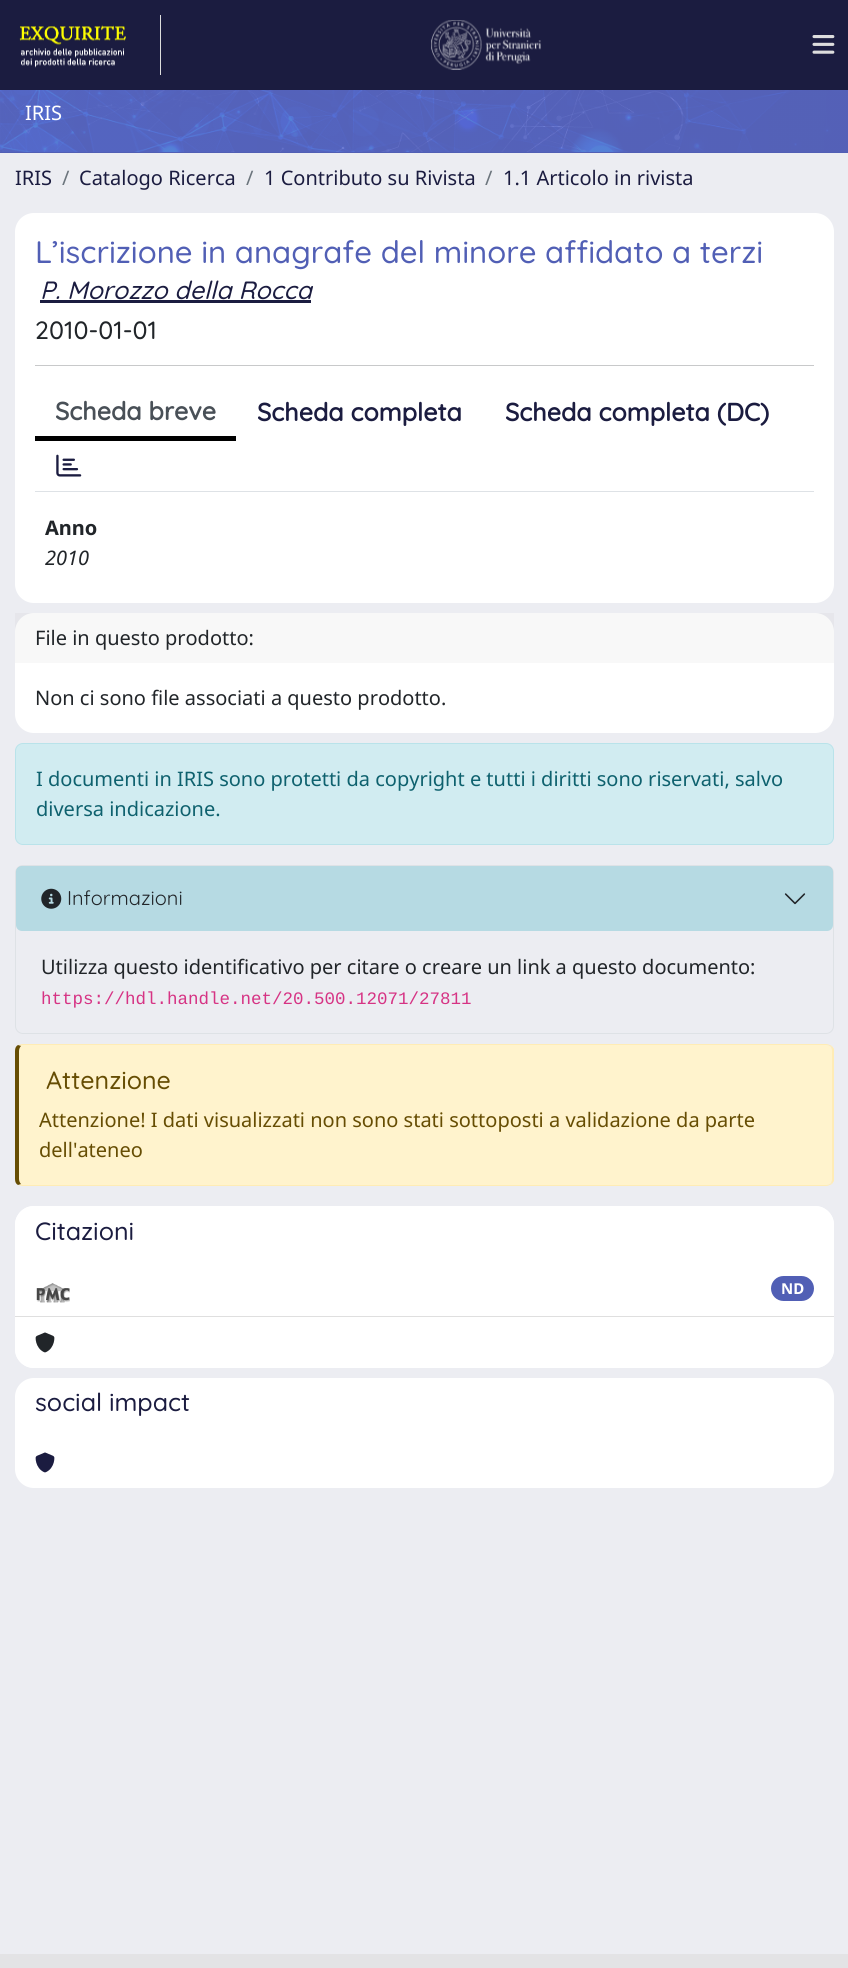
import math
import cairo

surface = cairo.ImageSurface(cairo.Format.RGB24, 848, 1968)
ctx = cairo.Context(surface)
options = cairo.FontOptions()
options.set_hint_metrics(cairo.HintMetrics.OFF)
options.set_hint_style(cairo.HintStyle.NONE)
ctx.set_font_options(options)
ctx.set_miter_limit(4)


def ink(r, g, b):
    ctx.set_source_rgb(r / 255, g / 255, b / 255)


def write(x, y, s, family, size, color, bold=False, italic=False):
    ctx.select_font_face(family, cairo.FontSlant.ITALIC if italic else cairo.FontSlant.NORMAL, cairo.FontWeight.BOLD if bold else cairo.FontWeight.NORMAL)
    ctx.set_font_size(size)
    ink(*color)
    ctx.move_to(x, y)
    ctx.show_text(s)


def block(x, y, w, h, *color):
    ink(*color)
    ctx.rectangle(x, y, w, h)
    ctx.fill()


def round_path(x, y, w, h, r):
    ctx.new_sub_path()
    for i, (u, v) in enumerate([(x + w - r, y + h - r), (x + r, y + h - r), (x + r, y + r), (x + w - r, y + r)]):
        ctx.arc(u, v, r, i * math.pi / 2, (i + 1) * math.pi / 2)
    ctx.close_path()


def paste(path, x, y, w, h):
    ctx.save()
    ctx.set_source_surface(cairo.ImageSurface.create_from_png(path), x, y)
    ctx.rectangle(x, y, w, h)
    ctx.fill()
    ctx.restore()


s1 = dict(family="Noto Sans", size=20, color=(255, 255, 255))
s2 = dict(family="Noto Sans", size=20, color=(27, 28, 64))
s3 = dict(family="Noto Sans", size=20, color=(108, 117, 125))
s4 = dict(family="Quicksand Medium", size=31.1, color=(81, 95, 181))
s5 = dict(family="Quicksand Medium", size=25, color=(27, 28, 64), italic=True)
s6 = dict(family="Quicksand Medium", size=25, color=(33, 37, 41))
s7 = dict(family="Quicksand", size=25, color=(73, 80, 87), bold=True)
s8 = dict(family="Quicksand", size=25, color=(27, 28, 64), bold=True)
s9 = dict(family="Noto Sans", size=20, color=(33, 37, 41), bold=True)
s10 = dict(family="Noto Sans", size=20, color=(33, 37, 41), italic=True)
s11 = dict(family="Noto Sans", size=20, color=(33, 37, 41))
s12 = dict(family="Noto Sans", size=20, color=(14, 97, 110))
s13 = dict(family="Quicksand", size=20, color=(33, 37, 41))
s14 = dict(family="Liberation Mono", size=17.5, color=(214, 51, 132))
s15 = dict(family="Quicksand Medium", size=25, color=(102, 77, 3))
s16 = dict(family="Noto Sans", size=20, color=(102, 77, 3))
s17 = dict(family="Quicksand Medium", size=25, color=(27, 28, 64))
s18 = dict(family="Noto Sans", size=15, color=(255, 255, 255), bold=True)

ink(236, 237, 242)
ctx.paint()
block(0, 0, 848, 90, 27, 28, 64)
block(160, 15, 1, 60, 221, 221, 221)
paste("pic1.png", 19, 25, 107, 43)
paste("pic2.png", 431, 20, 110, 50)
paste("pic3.png", 812, 35, 23, 19)
block(0, 152, 848, 1, 81, 95, 181)
paste("pic4.png", 0, 90, 848, 62)
write(25, 120, "IRIS", **s1)
write(15, 185, "IRIS", **s2)
write(62, 185, "/", **s3)
write(79, 185, "Catalogo Ricerca", **s2)
write(246, 185, "/", **s3)
write(264, 185, "1 Contributo su Rivista", **s2)
write(485, 185, "/", **s3)
write(503, 185, "1.1 Articolo in rivista", **s2)
ink(255, 255, 255)
round_path(15, 213, 819, 390, 19)
ctx.fill()
write(35, 263, "L’iscrizione in anagrafe del minore affidato a terzi", **s4)
write(40, 299, "P. Morozzo della Rocca", **s5)
block(40, 300, 271, 3, 27, 28, 64)
write(35, 339, "2010-01-01", **s6)
block(35, 365, 779, 1, 200, 201, 202)
block(35, 491, 779, 1, 222, 226, 230)
block(35, 436, 201, 5, 0, 0, 0)
write(55, 420, "Scheda breve", **s7)
write(257, 421, "Scheda completa", **s8)
write(505, 421, "Scheda completa (DC)", **s8)
paste("pic5.png", 56, 454, 26, 23)
write(45, 535, "Anno", **s9)
write(45, 565, "2010", **s10)
ink(255, 255, 255)
round_path(15, 613, 819, 120, 19)
ctx.fill()
ctx.set_source_rgba(0, 0, 0, 0.03)
ctx.rectangle(15, 613, 819, 50)
ctx.fill()
write(35, 645, "File in questo prodotto:", **s11)
write(35, 705, "Non ci sono file associati a questo prodotto.", **s11)
ink(209, 236, 241)
round_path(15.5, 743.5, 818, 101, 7.5)
ctx.fill_preserve()
ink(185, 227, 234)
ctx.set_line_width(1)
ctx.stroke()
write(36, 786, "I documenti in IRIS sono protetti da copyright e tutti i diritti sono riservati, salvo", **s12)
write(36, 816, "diversa indicazione.", **s12)
round_path(15.5, 865.5, 818, 168, 7.5)
ink(222, 226, 230)
ctx.stroke()
ctx.set_source_rgba(0.09, 0.635, 0.722, 0.25)
round_path(16, 866, 817, 65, 6)
ctx.fill()
paste("pic6.png", 41, 888, 21, 21)
write(67, 905, "Informazioni", **s13)
paste("pic7.png", 784, 893, 22, 12)
write(41, 974, "Utilizza questo identificativo per citare o creare un link a questo documento:", **s11)
write(41, 1004, "https://hdl.handle.net/20.500.12071/27811", **s14)
ink(255, 243, 205)
ctx.new_path()
ctx.move_to(22, 1045)
ctx.line_to(826, 1045)
ctx.curve_to(830, 1045, 832, 1048, 832, 1051)
ctx.line_to(832, 1179)
ctx.curve_to(832, 1182, 830, 1185, 826, 1185)
ctx.line_to(22, 1185)
ctx.curve_to(20, 1185, 19, 1182, 19, 1179)
ctx.line_to(19, 1051)
ctx.curve_to(19, 1048, 20, 1045, 22, 1045)
ctx.close_path()
ctx.fill()
ink(255, 236, 181)
ctx.new_path()
ctx.move_to(22, 1044)
ctx.line_to(18, 1045)
ctx.line_to(21, 1046)
ctx.line_to(22, 1045)
ctx.line_to(826, 1045)
ctx.curve_to(828, 1045, 830, 1046, 831, 1047)
ctx.line_to(832, 1046)
ctx.curve_to(830, 1045, 828, 1044, 826, 1044)
ctx.close_path()
ctx.fill()
ctx.new_path()
ctx.move_to(832, 1046)
ctx.line_to(834, 1049)
ctx.line_to(834, 1181)
ctx.line_to(832, 1184)
ctx.line_to(831, 1183)
ctx.line_to(832, 1180)
ctx.line_to(832, 1050)
ctx.line_to(831, 1047)
ctx.close_path()
ctx.fill()
ctx.new_path()
ctx.move_to(832, 1184)
ctx.curve_to(830, 1185, 828, 1186, 826, 1186)
ctx.line_to(22, 1186)
ctx.line_to(18, 1185)
ctx.line_to(21, 1184)
ctx.line_to(22, 1185)
ctx.line_to(826, 1185)
ctx.curve_to(828, 1185, 830, 1184, 831, 1183)
ctx.close_path()
ctx.fill()
ink(102, 77, 3)
ctx.new_path()
ctx.move_to(15, 1051)
ctx.line_to(15, 1179)
ctx.curve_to(15, 1182, 16, 1184, 18, 1185)
ctx.line_to(21, 1184)
ctx.curve_to(20, 1183, 19, 1181, 19, 1179)
ctx.line_to(19, 1051)
ctx.curve_to(19, 1049, 20, 1047, 21, 1046)
ctx.line_to(18, 1045)
ctx.curve_to(16, 1046, 15, 1048, 15, 1051)
ctx.close_path()
ctx.fill()
write(46, 1089, "Attenzione", **s15)
write(39, 1127, "Attenzione! I dati visualizzati non sono stati sottoposti a validazione da parte", **s16)
write(39, 1157, "dell'ateneo", **s16)
ink(255, 255, 255)
round_path(15, 1206, 819, 162, 19)
ctx.fill()
ctx.new_path()
ctx.move_to(34, 1206)
ctx.line_to(815, 1206)
ctx.curve_to(825.5, 1206, 834, 1214.5, 834, 1225)
ctx.line_to(834, 1266)
ctx.line_to(15, 1266)
ctx.line_to(15, 1225)
ctx.curve_to(15, 1214.5, 23.5, 1206, 34, 1206)
ctx.close_path()
ctx.fill()
write(35, 1240, "Citazioni", **s17)
block(15, 1316, 819, 1, 223, 223, 223)
paste("pic8.png", 36, 1283, 34, 20)
ink(81, 95, 181)
round_path(771, 1276, 43, 25, 12.5)
ctx.fill()
write(781, 1294, "ND", **s18)
ctx.new_path()
ctx.move_to(15, 1318)
ctx.line_to(834, 1318)
ctx.line_to(834, 1349)
ctx.curve_to(834, 1359.5, 825.5, 1368, 815, 1368)
ctx.line_to(34, 1368)
ctx.curve_to(23.5, 1368, 15, 1359.5, 15, 1349)
ctx.close_path()
ctx.fill()
paste("pic9.png", 35, 1332, 20, 21)
ctx.new_path()
ctx.move_to(34, 1378)
ctx.line_to(815, 1378)
ctx.curve_to(825.5, 1378, 834, 1386.5, 834, 1397)
ctx.line_to(834, 1438)
ctx.line_to(15, 1438)
ctx.line_to(15, 1397)
ctx.curve_to(15, 1386.5, 23.5, 1378, 34, 1378)
ctx.close_path()
ctx.fill()
write(35, 1411, "social impact", **s17)
ink(255, 255, 255)
ctx.new_path()
ctx.move_to(15, 1438)
ctx.line_to(834, 1438)
ctx.line_to(834, 1469)
ctx.curve_to(834, 1479.5, 825.5, 1488, 815, 1488)
ctx.line_to(34, 1488)
ctx.curve_to(23.5, 1488, 15, 1479.5, 15, 1469)
ctx.close_path()
ctx.fill()
paste("pic10.png", 35, 1452, 20, 21)
block(0, 1954, 848, 14, 227, 227, 229)
surface.write_to_png("screenshot.png")
